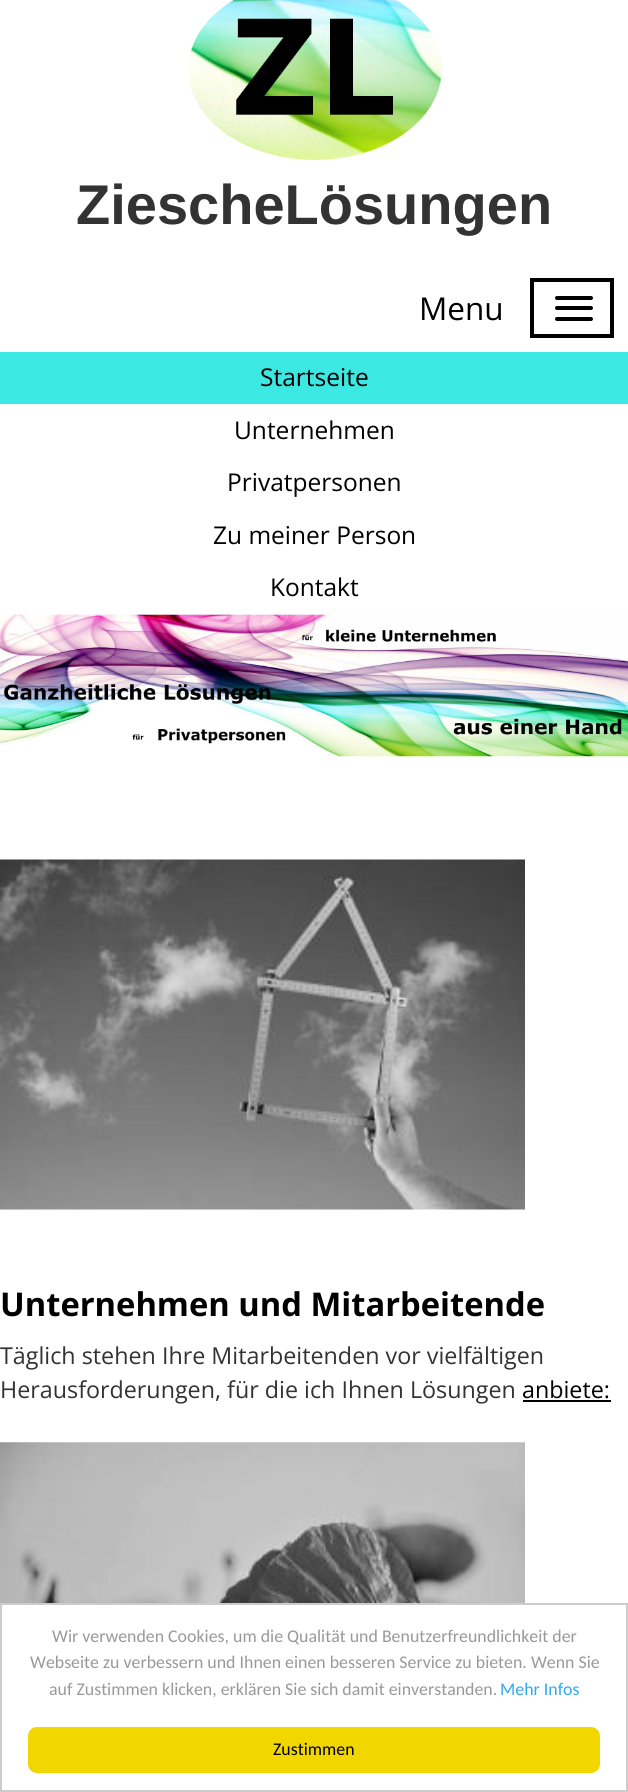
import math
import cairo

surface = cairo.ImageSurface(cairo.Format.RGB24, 628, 1792)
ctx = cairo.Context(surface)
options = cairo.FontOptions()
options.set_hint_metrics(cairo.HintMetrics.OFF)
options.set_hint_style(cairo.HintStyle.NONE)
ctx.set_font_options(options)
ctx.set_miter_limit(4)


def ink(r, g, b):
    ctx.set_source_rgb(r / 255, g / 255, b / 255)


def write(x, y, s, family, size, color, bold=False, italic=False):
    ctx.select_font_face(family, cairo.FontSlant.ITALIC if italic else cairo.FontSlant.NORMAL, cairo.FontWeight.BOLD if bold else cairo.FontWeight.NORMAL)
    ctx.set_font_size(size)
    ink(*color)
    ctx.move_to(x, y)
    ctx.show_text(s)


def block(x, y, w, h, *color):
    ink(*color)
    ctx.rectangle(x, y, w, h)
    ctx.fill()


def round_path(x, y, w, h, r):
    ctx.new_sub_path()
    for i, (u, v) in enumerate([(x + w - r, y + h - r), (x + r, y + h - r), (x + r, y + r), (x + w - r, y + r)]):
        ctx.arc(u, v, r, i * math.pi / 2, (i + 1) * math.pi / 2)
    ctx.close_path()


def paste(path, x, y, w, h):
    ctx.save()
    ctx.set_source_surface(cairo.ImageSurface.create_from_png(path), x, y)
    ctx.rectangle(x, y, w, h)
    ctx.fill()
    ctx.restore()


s1 = dict(family="Liberation Sans", size=56, color=(51, 51, 51), bold=True)
s2 = dict(family="Open Sans", size=31.5, color=(0, 0, 0))
s3 = dict(family="Open Sans", size=24.5, color=(0, 0, 0))
s4 = dict(family="Open Sans", size=32.7, color=(0, 0, 0), bold=True)
s5 = dict(family="Open Sans", size=23.3, color=(51, 51, 51))
s6 = dict(family="Open Sans", size=23.3, color=(0, 0, 0))
s7 = dict(family="Carlito", size=17.85, color=(153, 153, 153))
s8 = dict(family="Carlito", size=17.85, color=(49, 168, 240))
s9 = dict(family="Carlito", size=17.85, color=(0, 0, 0))

ink(255, 255, 255)
ctx.paint()
paste("pic1.png", 188, 0, 254, 160)
write(76, 224, "ZiescheLösungen", **s1)
write(419, 320, "Menu", **s2)
ctx.rectangle(532, 280, 80, 56)
ctx.set_line_width(4)
ctx.stroke()
round_path(555, 296, 38, 4, 2)
ctx.fill()
round_path(555, 306, 38, 4, 2)
ctx.fill()
round_path(555, 317, 38, 4, 2)
ctx.fill()
block(0, 352, 628, 52, 60, 232, 226)
write(260, 386, "Startseite", **s3)
write(234, 439, "Unternehmen", **s3)
write(227, 491, "Privatpersonen", **s3)
write(213, 544, "Zu meiner Person", **s3)
write(270, 596, "Kontakt", **s3)
paste("pic2.png", 0, 614, 628, 143)
paste("pic3.png", 0, 859, 525, 351)
write(0, 1316, "Unternehmen und Mitarbeitende", **s4)
write(0, 1364, "Täglich stehen Ihre Mitarbeitenden vor vielfältigen", **s5)
write(0, 1398, "Herausforderungen, für die ich Ihnen Lösungen", **s5)
write(522, 1398, "anbiete:", **s6)
block(523, 1400, 88, 2, 0, 0, 0)
paste("pic4.png", 0, 1442, 525, 161)
ctx.rectangle(1, 1604, 626, 187)
ink(204, 204, 204)
ctx.set_line_width(2)
ctx.stroke()
write(52, 1642, "Wir verwenden Cookies, um die Qualität und Benutzerfreundlichkeit der", **s7)
write(30, 1668, "Webseite zu verbessern und Ihnen einen besseren Service zu bieten. Wenn Sie", **s7)
write(49, 1695, "auf Zustimmen klicken, erklären Sie sich damit einverstanden.", **s7)
write(500, 1695, "Mehr Infos", **s8)
ink(241, 214, 0)
round_path(28, 1727, 572, 46, 9)
ctx.fill()
write(273, 1755, "Zustimmen", **s9)
surface.write_to_png("screenshot.png")
